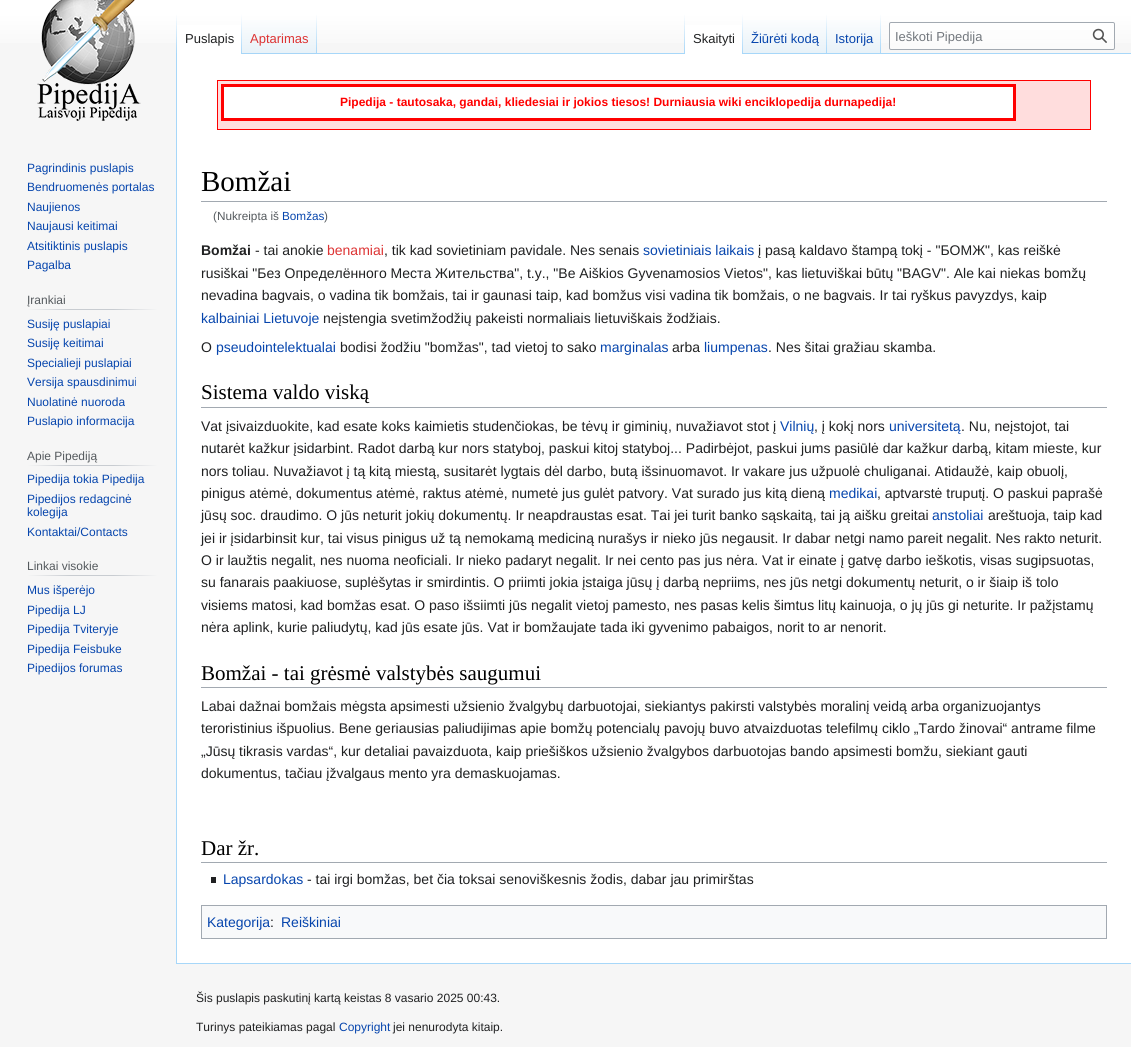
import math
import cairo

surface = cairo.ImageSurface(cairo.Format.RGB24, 1131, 1047)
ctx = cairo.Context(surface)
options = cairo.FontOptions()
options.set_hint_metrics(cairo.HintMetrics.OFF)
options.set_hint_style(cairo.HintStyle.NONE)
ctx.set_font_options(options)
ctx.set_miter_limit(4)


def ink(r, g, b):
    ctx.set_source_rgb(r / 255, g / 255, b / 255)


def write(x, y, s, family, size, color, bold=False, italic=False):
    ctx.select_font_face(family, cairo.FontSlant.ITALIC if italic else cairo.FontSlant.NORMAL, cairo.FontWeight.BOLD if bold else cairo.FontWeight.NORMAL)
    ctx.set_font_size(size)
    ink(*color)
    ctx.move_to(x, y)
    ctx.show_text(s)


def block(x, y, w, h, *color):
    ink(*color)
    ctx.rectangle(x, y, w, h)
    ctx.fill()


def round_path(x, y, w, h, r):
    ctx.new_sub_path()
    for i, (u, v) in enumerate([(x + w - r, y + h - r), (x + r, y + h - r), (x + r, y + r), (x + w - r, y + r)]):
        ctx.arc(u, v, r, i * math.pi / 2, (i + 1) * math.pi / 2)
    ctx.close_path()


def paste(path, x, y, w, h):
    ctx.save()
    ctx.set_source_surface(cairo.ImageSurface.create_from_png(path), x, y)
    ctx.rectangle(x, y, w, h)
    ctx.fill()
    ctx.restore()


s1 = dict(family="Liberation Sans", size=13, color=(32, 33, 34))
s2 = dict(family="Liberation Sans", size=13, color=(221, 51, 51))
s3 = dict(family="Liberation Sans", size=13, color=(6, 69, 173))
s4 = dict(family="Liberation Sans", size=13, color=(114, 119, 125))
s5 = dict(family="Liberation Sans", size=12, color=(6, 69, 173))
s6 = dict(family="Liberation Sans", size=12, color=(84, 89, 93))
s7 = dict(family="Liberation Sans", size=12, color=(255, 0, 0), bold=True)
s8 = dict(family="Liberation Serif", size=29, color=(0, 0, 0))
s9 = dict(family="Liberation Sans", size=11.75, color=(84, 89, 93))
s10 = dict(family="Liberation Sans", size=11.75, color=(6, 69, 173))
s11 = dict(family="Liberation Sans", size=14, color=(32, 33, 34), bold=True)
s12 = dict(family="Liberation Sans", size=14, color=(32, 33, 34))
s13 = dict(family="Liberation Sans", size=14, color=(221, 51, 51))
s14 = dict(family="Liberation Sans", size=14, color=(6, 69, 173))
s15 = dict(family="Liberation Serif", size=21, color=(0, 0, 0))
s16 = dict(family="Liberation Sans", size=12, color=(32, 33, 34))

ink(246, 246, 246)
ctx.paint()
gradient = cairo.LinearGradient(566, -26, 566, 54)
gradient.add_color_stop_rgba(0.5, 1, 1, 1, 1)
gradient.add_color_stop_rgba(1, 0.965, 0.965, 0.965, 1)
ctx.set_source(gradient)
ctx.rectangle(0, 0, 1131, 43)
ctx.fill()
block(176, 963, 955, 1, 167, 215, 249)
block(176, 53, 1, 911, 167, 215, 249)
gradient = cairo.LinearGradient(177, 14, 177, 54)
gradient.add_color_stop_rgba(0, 0.655, 0.843, 0.976, 0)
gradient.add_color_stop_rgba(1, 0.655, 0.843, 0.976, 1)
ctx.set_source(gradient)
ctx.rectangle(176, 14, 1, 40)
ctx.fill()
block(177, 25, 64, 29, 255, 255, 255)
gradient = cairo.LinearGradient(242, 14, 242, 54)
gradient.add_color_stop_rgba(0, 1, 1, 1, 1)
gradient.add_color_stop_rgba(1, 0.655, 0.843, 0.976, 1)
ctx.set_source(gradient)
ctx.rectangle(241, 14, 1, 40)
ctx.fill()
write(185, 43, "Puslapis", **s1)
gradient = cairo.LinearGradient(280, 54, 280, 14)
gradient.add_color_stop_rgba(0, 0.467, 0.757, 0.965, 1)
gradient.add_color_stop_rgba(0.03, 0.91, 0.949, 0.973, 1)
gradient.add_color_stop_rgba(1, 1, 1, 1, 1)
ctx.set_source(gradient)
ctx.rectangle(242, 20, 75, 34)
ctx.fill()
gradient = cairo.LinearGradient(317, 14, 317, 54)
gradient.add_color_stop_rgba(0, 0.655, 0.843, 0.976, 0)
gradient.add_color_stop_rgba(1, 0.655, 0.843, 0.976, 1)
ctx.set_source(gradient)
ctx.rectangle(316, 14, 1, 40)
ctx.fill()
write(250, 43, "Aptarimas", **s2)
block(317, 53, 814, 1, 167, 215, 249)
gradient = cairo.LinearGradient(685, 14, 685, 54)
gradient.add_color_stop_rgba(0, 0.655, 0.843, 0.976, 0)
gradient.add_color_stop_rgba(1, 0.655, 0.843, 0.976, 1)
ctx.set_source(gradient)
ctx.rectangle(684, 14, 1, 40)
ctx.fill()
block(685, 25, 57, 29, 255, 255, 255)
gradient = cairo.LinearGradient(743, 14, 743, 54)
gradient.add_color_stop_rgba(0, 1, 1, 1, 1)
gradient.add_color_stop_rgba(1, 0.655, 0.843, 0.976, 1)
ctx.set_source(gradient)
ctx.rectangle(742, 14, 1, 40)
ctx.fill()
write(693, 43, "Skaityti", **s1)
gradient = cairo.LinearGradient(785, 54, 785, 14)
gradient.add_color_stop_rgba(0, 0.467, 0.757, 0.965, 1)
gradient.add_color_stop_rgba(0.03, 0.91, 0.949, 0.973, 1)
gradient.add_color_stop_rgba(1, 1, 1, 1, 1)
ctx.set_source(gradient)
ctx.rectangle(743, 20, 84, 33)
ctx.fill()
gradient = cairo.LinearGradient(827, 14, 827, 54)
gradient.add_color_stop_rgba(0, 0.655, 0.843, 0.976, 0)
gradient.add_color_stop_rgba(1, 0.655, 0.843, 0.976, 1)
ctx.set_source(gradient)
ctx.rectangle(826, 14, 1, 40)
ctx.fill()
write(751, 43, "Žiūrėti kodą", **s3)
gradient = cairo.LinearGradient(854, 54, 854, 14)
gradient.add_color_stop_rgba(0, 0.467, 0.757, 0.965, 1)
gradient.add_color_stop_rgba(0.03, 0.91, 0.949, 0.973, 1)
gradient.add_color_stop_rgba(1, 1, 1, 1, 1)
ctx.set_source(gradient)
ctx.rectangle(827, 20, 54, 33)
ctx.fill()
gradient = cairo.LinearGradient(881, 14, 881, 54)
gradient.add_color_stop_rgba(0, 0.655, 0.843, 0.976, 0)
gradient.add_color_stop_rgba(1, 0.655, 0.843, 0.976, 1)
ctx.set_source(gradient)
ctx.rectangle(880, 14, 1, 40)
ctx.fill()
write(835, 43, "Istorija", **s3)
ctx.set_source_rgba(1, 1, 1, 0.5)
round_path(889.5, 22.5, 225, 27, 1.5)
ctx.fill_preserve()
ink(162, 169, 177)
ctx.set_line_width(1)
ctx.stroke()
write(895, 41, "Ieškoti Pipedija", **s4)
paste("pic1.png", 1092, 28, 15, 15)
paste("pic2.png", 37, 0, 104, 121)
write(27, 172, "Pagrindinis puslapis", **s5)
write(27, 191, "Bendruomenės portalas", **s5)
write(27, 211, "Naujienos", **s5)
write(27, 230, "Naujausi keitimai", **s5)
write(27, 250, "Atsitiktinis puslapis", **s5)
write(27, 269, "Pagalba", **s5)
gradient = cairo.LinearGradient(27, 310, 158, 310)
gradient.add_color_stop_rgba(0, 0.965, 0.965, 0.965, 1)
gradient.add_color_stop_rgba(0.33, 0.784, 0.8, 0.82, 1)
gradient.add_color_stop_rgba(0.66, 0.784, 0.8, 0.82, 1)
gradient.add_color_stop_rgba(1, 0.965, 0.965, 0.965, 1)
ctx.set_source(gradient)
ctx.rectangle(27, 309, 131, 1)
ctx.fill()
write(27, 304, "Įrankiai", **s6)
write(27, 328, "Susiję puslapiai", **s5)
write(27, 347, "Susiję keitimai", **s5)
write(27, 367, "Specialieji puslapiai", **s5)
write(27, 386, "Versija spausdinimui", **s5)
write(27, 406, "Nuolatinė nuoroda", **s5)
write(27, 425, "Puslapio informacija", **s5)
gradient = cairo.LinearGradient(27, 466, 158, 466)
gradient.add_color_stop_rgba(0, 0.965, 0.965, 0.965, 1)
gradient.add_color_stop_rgba(0.33, 0.784, 0.8, 0.82, 1)
gradient.add_color_stop_rgba(0.66, 0.784, 0.8, 0.82, 1)
gradient.add_color_stop_rgba(1, 0.965, 0.965, 0.965, 1)
ctx.set_source(gradient)
ctx.rectangle(27, 465, 131, 1)
ctx.fill()
write(27, 460, "Apie Pipediją", **s6)
write(27, 483, "Pipedija tokia Pipedija", **s5)
write(27, 503, "Pipedijos redagcinė", **s5)
write(27, 516, "kolegija", **s5)
write(27, 536, "Kontaktai/Contacts", **s5)
gradient = cairo.LinearGradient(27, 576, 158, 576)
gradient.add_color_stop_rgba(0, 0.965, 0.965, 0.965, 1)
gradient.add_color_stop_rgba(0.33, 0.784, 0.8, 0.82, 1)
gradient.add_color_stop_rgba(0.66, 0.784, 0.8, 0.82, 1)
gradient.add_color_stop_rgba(1, 0.965, 0.965, 0.965, 1)
ctx.set_source(gradient)
ctx.rectangle(27, 575, 131, 1)
ctx.fill()
write(27, 570, "Linkai visokie", **s6)
write(27, 594, "Mus išperėjo", **s5)
write(27, 614, "Pipedija LJ", **s5)
write(27, 633, "Pipedija Tviteryje", **s5)
write(27, 653, "Pipedija Feisbuke", **s5)
write(27, 672, "Pipedijos forumas", **s5)
block(177, 54, 954, 909, 255, 255, 255)
ink(255, 221, 221)
ctx.rectangle(217.5, 80.5, 873, 49)
ctx.fill_preserve()
ink(255, 0, 0)
ctx.stroke()
ink(255, 255, 255)
ctx.rectangle(222.5, 85.5, 792, 34)
ctx.fill_preserve()
ink(255, 0, 0)
ctx.set_line_width(3)
ctx.stroke()
write(340, 106, "Pipedija - tautosaka, gandai, kliedesiai ir jokios tiesos! Durniausia wiki enciklopedija durnapedija!", **s7)
block(201, 201, 906, 1, 162, 169, 177)
write(201, 191, "Bomžai", **s8)
write(213, 220, "(Nukreipta iš", **s9)
write(282, 220, "Bomžas", **s10)
write(324, 220, ")", **s9)
write(201, 255, "Bomžai", **s11)
write(255, 255, "- tai anokie", **s12)
write(327, 255, "benamiai", **s13)
write(384, 255, ", tik kad sovietiniam pavidale. Nes senais", **s12)
write(643, 255, "sovietiniais laikais", **s14)
write(758, 255, "į pasą kaldavo štampą tokį - \"БОМЖ\", kas reiškė", **s12)
write(201, 278, "rusiškai \"Без Определённого Места Жительства\", t.y., \"Be Aiškios Gyvenamosios Vietos\", kas lietuviškai būtų \"BAGV\". Ale kai niekas bomžų", **s12)
write(201, 300, "nevadina bagvais, o vadina tik bomžais, tai ir gaunasi taip, kad bomžus visi vadina tik bomžais, o ne bagvais. Ir tai ryškus pavyzdys, kaip", **s12)
write(201, 323, "kalbainiai Lietuvoje", **s14)
write(323, 323, "neįstengia svetimžodžių pakeisti normaliais lietuviškais žodžiais.", **s12)
write(201, 352, "O", **s12)
write(216, 352, "pseudointelektualai", **s14)
write(340, 352, "bodisi žodžiu \"bomžas\", tad vietoj to sako", **s12)
write(600, 352, "marginalas", **s14)
write(672, 352, "arba", **s12)
write(704, 352, "liumpenas", **s14)
write(768, 352, ". Nes šitai gražiau skamba.", **s12)
block(201, 407, 906, 1, 162, 169, 177)
write(201, 399, "Sistema valdo viską", **s15)
write(201, 431, "Vat įsivaizduokite, kad esate koks kaimietis studenčiokas, be tėvų ir giminių, nuvažiavot stot į", **s12)
write(780, 431, "Vilnių", **s14)
write(814, 431, ", į kokį nors", **s12)
write(889, 431, "universitetą", **s14)
write(961, 431, ". Nu, neįstojot, tai", **s12)
write(201, 453, "nutarėt kažkur įsidarbint. Radot darbą kur nors statyboj, paskui kitoj statyboj... Padirbėjot, paskui jums pasiūlė dar kažkur darbą, kitam mieste, kur", **s12)
write(201, 476, "nors toliau. Nuvažiavot į tą kitą miestą, susitarėt lygtais dėl darbo, butą išsinuomavot. Ir vakare jus užpuolė chuliganai. Atidaužė, kaip obuolį,", **s12)
write(201, 498, "pinigus atėmė, dokumentus atėmė, raktus atėmė, numetė jus gulėt patvory. Vat surado jus kitą dieną", **s12)
write(829, 498, "medikai", **s14)
write(877, 498, ", aptvarstė truputį. O paskui paprašė", **s12)
write(201, 520, "jūsų soc. draudimo. O jūs neturit jokių dokumentų. Ir neapdraustas esat. Tai jei turit banko sąskaitą, tai ją aišku greitai", **s12)
write(932, 520, "anstoliai", **s14)
write(988, 520, "areštuoja, taip kad", **s12)
write(201, 543, "jei ir įsidarbinsit kur, tai visus pinigus už tą nemokamą mediciną nurašys ir nieko jūs negausit. Ir dabar netgi namo pareit negalit. Nes rakto neturit.", **s12)
write(201, 565, "O ir laužtis negalit, nes nuoma neoficiali. Ir nieko padaryt negalit. Ir nei cento pas jus nėra. Vat ir einate į gatvę darbo ieškotis, visas sugipsuotas,", **s12)
write(201, 587, "su fanarais paakiuose, suplėšytas ir smirdintis. O priimti jokia įstaiga jūsų į darbą nepriims, nes jūs netgi dokumentų neturit, o ir šiaip iš tolo", **s12)
write(201, 610, "visiems matosi, kad bomžas esat. O paso išsiimti jūs negalit vietoj pamesto, nes pasas kelis šimtus litų kainuoja, o jų jūs gi neturite. Ir pažįstamų", **s12)
write(201, 632, "nėra aplink, kurie paliudytų, kad jūs esate jūs. Vat ir bomžaujate tada iki gyvenimo pabaigos, norit to ar nenorit.", **s12)
block(201, 687, 906, 1, 162, 169, 177)
write(201, 680, "Bomžai - tai grėsmė valstybės saugumui", **s15)
write(201, 711, "Labai dažnai bomžais mėgsta apsimesti užsienio žvalgybų darbuotojai, siekiantys pakirsti valstybės moralinį veidą arba organizuojantys", **s12)
write(201, 733, "teroristinius išpuolius. Bene geriausias paliudijimas apie bomžų potencialų pavojų buvo atvaizduotas telefilmų ciklo „Tardo žinovai“ antrame filme", **s12)
write(201, 756, "„Jūsų tikrasis vardas“, kur detaliai pavaizduota, kaip priešiškos užsienio žvalgybos darbuotojas bando apsimesti bomžu, siekiant gauti", **s12)
write(201, 778, "dokumentus, tačiau įžvalgaus mento yra demaskuojamas.", **s12)
block(201, 862, 906, 1, 162, 169, 177)
write(201, 855, "Dar žr.", **s15)
block(211, 877, 5, 6, 32, 33, 34)
write(223, 884, "Lapsardokas", **s14)
write(307, 884, "- tai irgi bomžas, bet čia toksai senoviškesnis žodis, dabar jau primirštas", **s12)
ink(248, 249, 250)
ctx.rectangle(201.5, 905.5, 905, 33)
ctx.fill_preserve()
ink(162, 169, 177)
ctx.set_line_width(1)
ctx.stroke()
write(207, 927, "Kategorija", **s14)
write(270, 927, ":", **s12)
write(281, 927, "Reiškiniai", **s14)
write(196, 1002, "Šis puslapis paskutinį kartą keistas 8 vasario 2025 00:43.", **s16)
write(196, 1031, "Turinys pateikiamas pagal", **s16)
write(339, 1031, "Copyright", **s5)
write(393, 1031, "jei nenurodyta kitaip.", **s16)
surface.write_to_png("screenshot.png")
